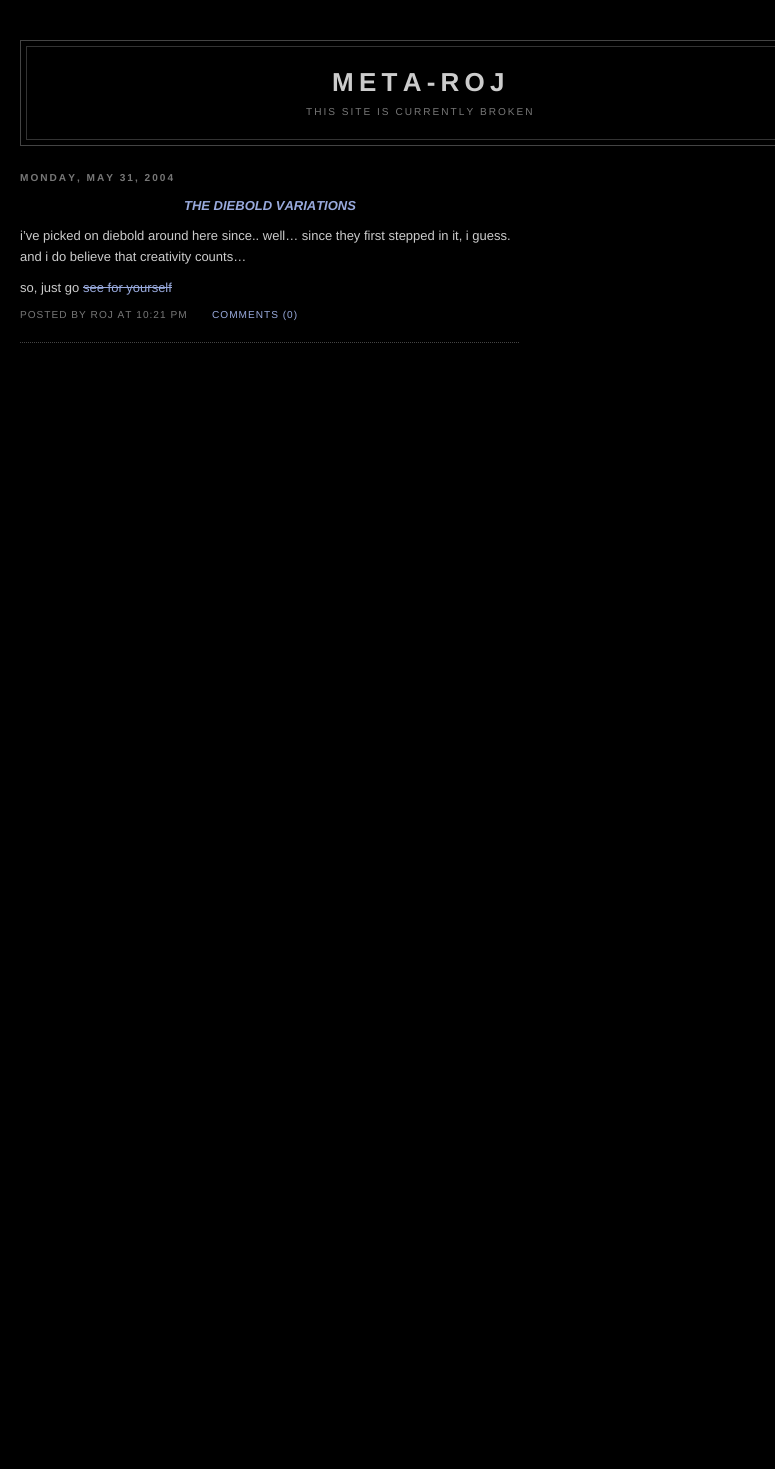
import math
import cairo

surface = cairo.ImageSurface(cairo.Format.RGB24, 775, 1469)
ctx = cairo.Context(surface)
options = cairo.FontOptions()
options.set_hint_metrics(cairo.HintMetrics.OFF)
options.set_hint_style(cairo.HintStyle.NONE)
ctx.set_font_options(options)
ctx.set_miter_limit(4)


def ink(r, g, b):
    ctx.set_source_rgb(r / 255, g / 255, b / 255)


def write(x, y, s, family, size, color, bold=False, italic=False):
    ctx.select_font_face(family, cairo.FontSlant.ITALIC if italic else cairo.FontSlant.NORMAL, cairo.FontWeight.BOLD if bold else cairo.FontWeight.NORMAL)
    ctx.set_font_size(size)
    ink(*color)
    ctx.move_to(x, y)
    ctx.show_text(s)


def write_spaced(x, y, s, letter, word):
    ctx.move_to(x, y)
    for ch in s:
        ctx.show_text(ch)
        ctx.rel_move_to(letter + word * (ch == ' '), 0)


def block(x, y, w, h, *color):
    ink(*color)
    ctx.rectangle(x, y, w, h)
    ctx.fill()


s1 = dict(family="Liberation Sans", size=13, color=(153, 170, 221), bold=True, italic=True)
s2 = dict(family="Liberation Sans", size=13, color=(204, 204, 204))
s3 = dict(family="Liberation Sans", size=13, color=(153, 170, 221))

ink(0, 0, 0)
ctx.paint()
ctx.rectangle(20.5, 40.5, 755, 105)
ink(68, 68, 68)
ctx.set_line_width(1)
ctx.stroke()
block(26, 46, 749, 1, 51, 51, 51)
block(26, 46, 1, 59, 51, 51, 51)
ctx.select_font_face("Liberation Sans", cairo.FontSlant.NORMAL, cairo.FontWeight.BOLD)
ctx.set_font_size(26)
ink(204, 204, 204)
write_spaced(332, 91, "META-ROJ", 5.25, 0)
block(26, 139, 749, 1, 51, 51, 51)
block(26, 105, 1, 35, 51, 51, 51)
ctx.select_font_face("Liberation Sans")
ctx.set_font_size(10.1)
ink(119, 119, 119)
write_spaced(306, 115, "THIS SITE IS CURRENTLY BROKEN", 2, 0)
ctx.select_font_face("Liberation Sans", cairo.FontSlant.NORMAL, cairo.FontWeight.BOLD)
write_spaced(20, 181, "MONDAY, MAY 31, 2004", 2, 0)
ctx.new_path()
ctx.move_to(20, 342.5)
ctx.line_to(520, 342.5)
ink(68, 68, 68)
ctx.set_dash([1, 1])
ctx.stroke()
write(184, 210, "THE DIEBOLD VARIATIONS", **s1)
write(20, 240, "i’ve picked on diebold around here since.. well… since they first stepped in it, i guess.", **s2)
write(20, 261, "and i do believe that creativity counts…", **s2)
write(20, 292, "so, just go", **s2)
write(83, 292, "see for yourself", **s3)
block(83, 287, 89, 1, 153, 170, 221)
ctx.set_font_size(10.1)
ink(119, 119, 119)
write_spaced(20, 318, "POSTED BY ROJ AT 10:21 PM", 1, 0)
ink(153, 170, 221)
write_spaced(212, 318, "COMMENTS (0)", 1, 0)
surface.write_to_png("screenshot.png")
